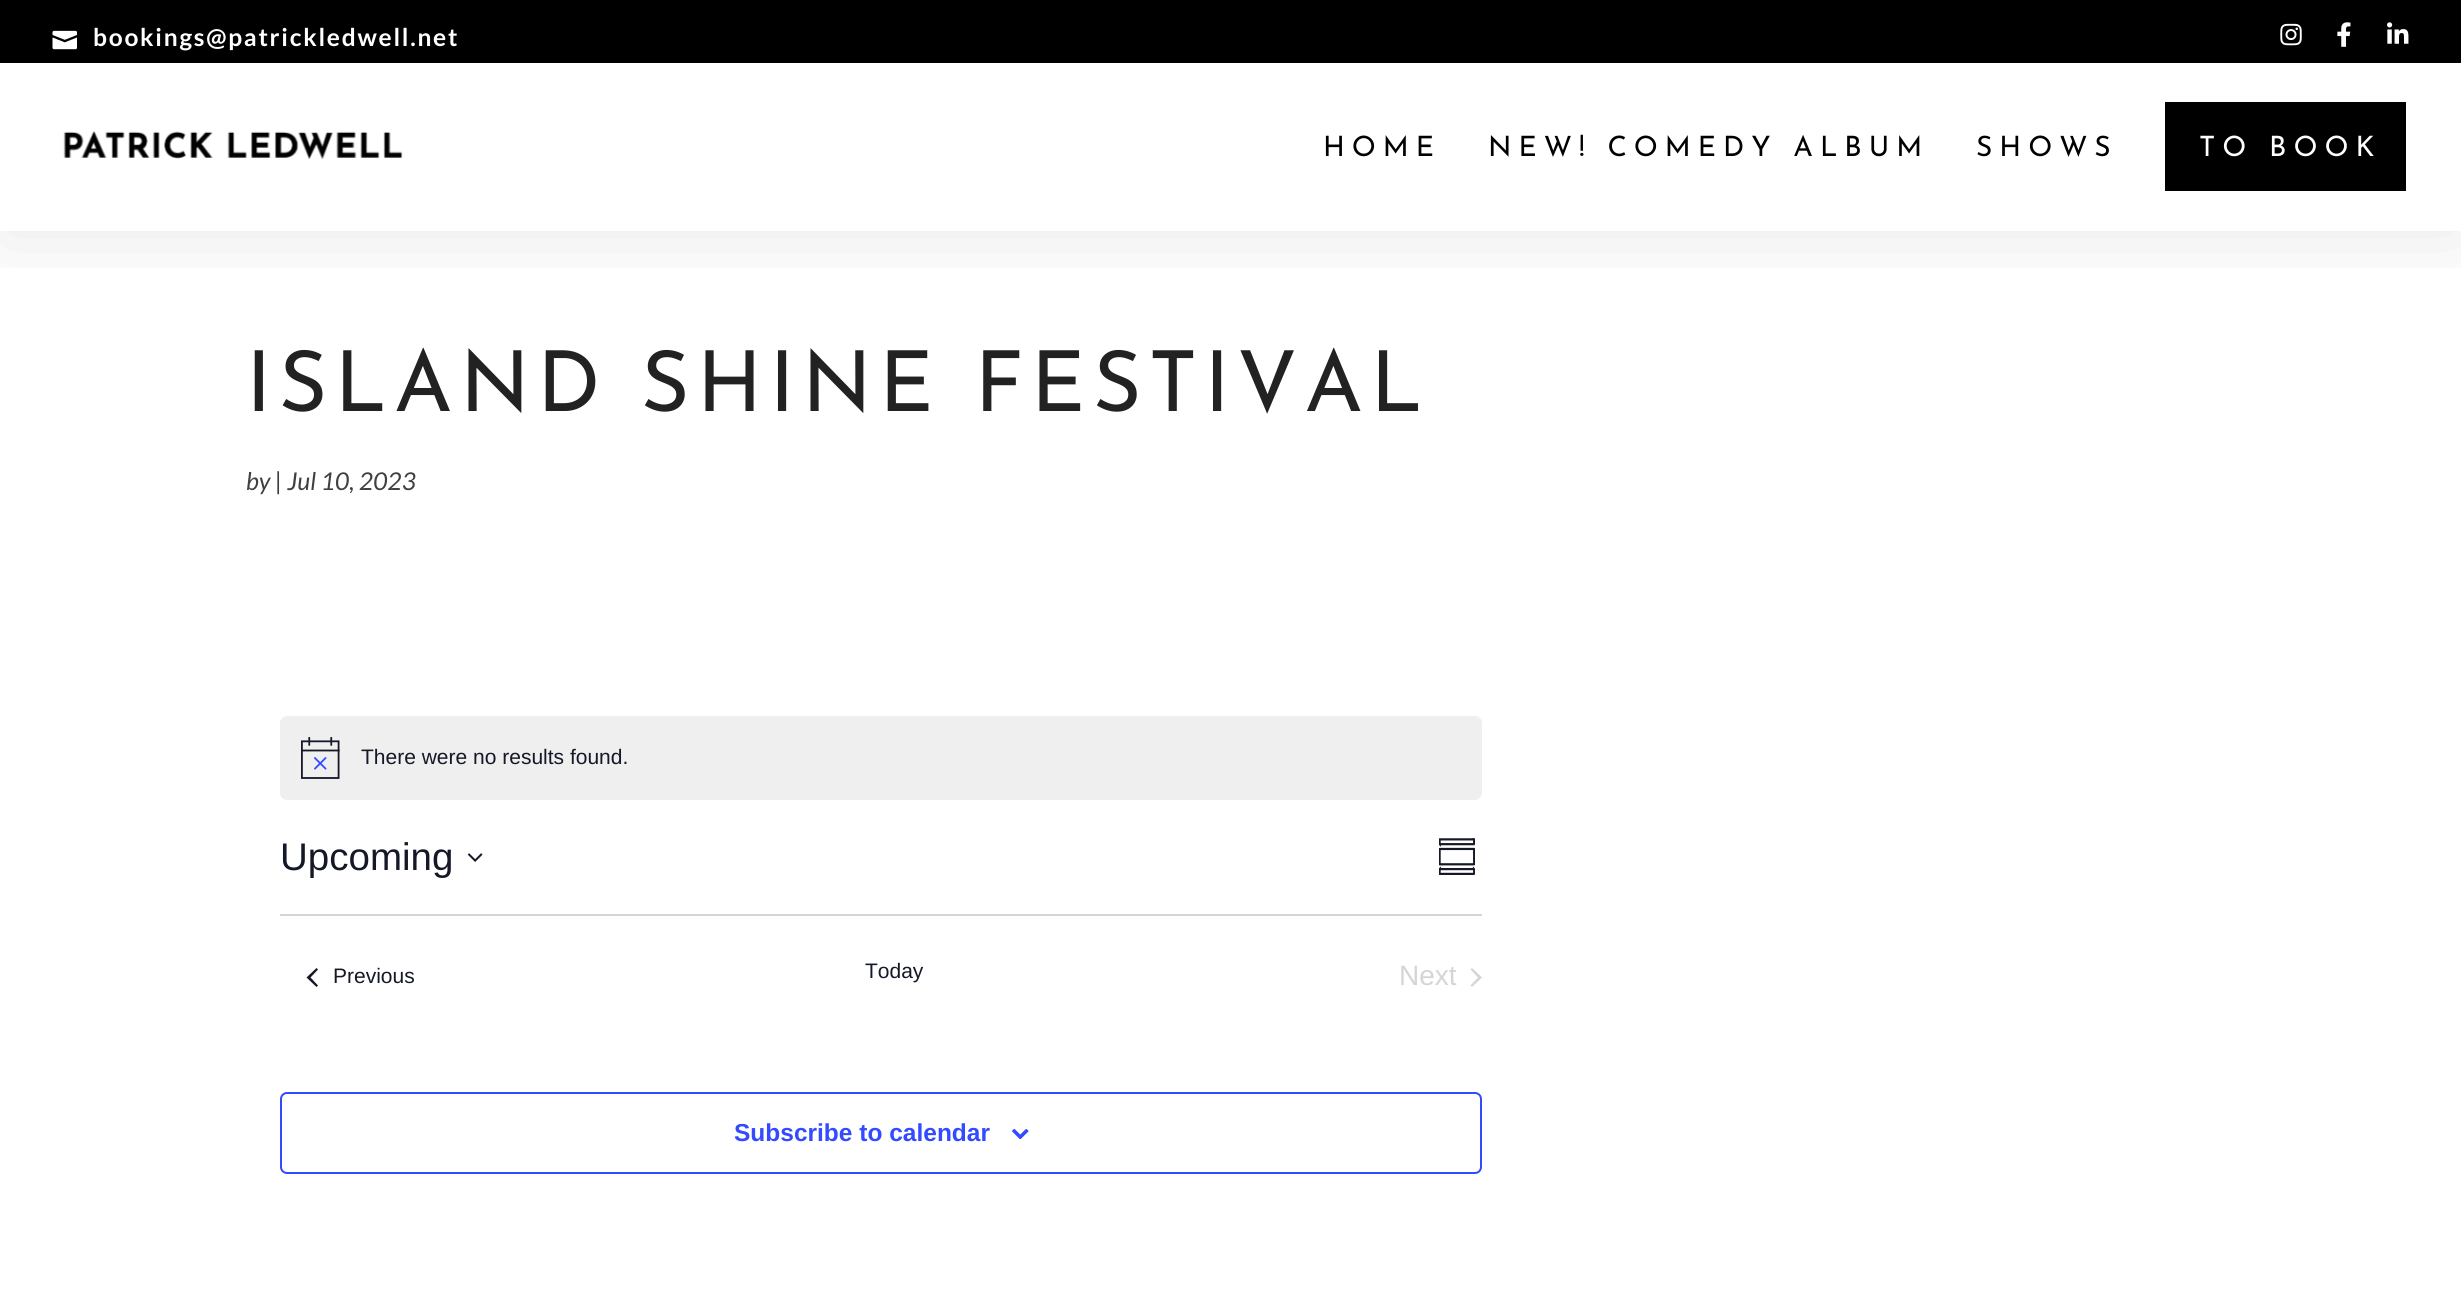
import math
import cairo

surface = cairo.ImageSurface(cairo.Format.RGB24, 2461, 1316)
ctx = cairo.Context(surface)
options = cairo.FontOptions()
options.set_hint_metrics(cairo.HintMetrics.OFF)
options.set_hint_style(cairo.HintStyle.NONE)
ctx.set_font_options(options)
ctx.set_miter_limit(4)


def ink(r, g, b):
    ctx.set_source_rgb(r / 255, g / 255, b / 255)


def write(x, y, s, family, size, color, bold=False, italic=False):
    ctx.select_font_face(family, cairo.FontSlant.ITALIC if italic else cairo.FontSlant.NORMAL, cairo.FontWeight.BOLD if bold else cairo.FontWeight.NORMAL)
    ctx.set_font_size(size)
    ink(*color)
    ctx.move_to(x, y)
    ctx.show_text(s)


def write_spaced(x, y, s, letter, word):
    ctx.move_to(x, y)
    for ch in s:
        ctx.show_text(ch)
        ctx.rel_move_to(letter + word * (ch == ' '), 0)


def block(x, y, w, h, *color):
    ink(*color)
    ctx.rectangle(x, y, w, h)
    ctx.fill()


def round_path(x, y, w, h, r):
    ctx.new_sub_path()
    for i, (u, v) in enumerate([(x + w - r, y + h - r), (x + r, y + h - r), (x + r, y + r), (x + w - r, y + r)]):
        ctx.arc(u, v, r, i * math.pi / 2, (i + 1) * math.pi / 2)
    ctx.close_path()


def blur_box(x, y, w, h, r, blur, alpha):
    ctx.push_group_with_content(cairo.Content.ALPHA)
    ctx.set_operator(cairo.Operator.SOURCE)
    for i in range(15, -16, -2):
        e = blur * i / 6
        if min(w, h) + 2 * e > 0:
            ctx.set_source_rgba(0, 0, 0, alpha * math.erfc((i - 1) / 8.5) / 2)
            round_path(x - e, y - e, w + 2 * e, h + 2 * e, max(0, min(r + e + blur * .6, min(w, h) / 2 + e)))
            ctx.fill()
    ctx.mask(ctx.pop_group())


def paste(path, x, y, w, h):
    ctx.save()
    ctx.set_source_surface(cairo.ImageSurface.create_from_png(path), x, y)
    ctx.rectangle(x, y, w, h)
    ctx.fill()
    ctx.restore()


s1 = dict(family="Lato", size=24.5, color=(64, 64, 64), italic=True)
s2 = dict(family="Liberation Sans", size=21, color=(20, 24, 39))
s3 = dict(family="Liberation Sans", size=38.5, color=(20, 24, 39))
s4 = dict(family="Liberation Sans", size=28, color=(213, 213, 213))
s5 = dict(family="Liberation Sans", size=24.5, color=(51, 74, 255), bold=True)

ink(255, 255, 255)
ctx.paint()
ctx.save()
ctx.rectangle(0, 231, 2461, 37)
ctx.clip()
ink(0, 0, 0)
blur_box(0, 63, 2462, 168, 0, 44, 0.1)
ctx.restore()
block(0, 0, 2461, 63, 0, 0, 0)
paste("pic1.png", 52, 30, 25, 20)
ctx.select_font_face("Lato", cairo.FontSlant.NORMAL, cairo.FontWeight.BOLD)
ctx.set_font_size(24.5)
ink(255, 255, 255)
write_spaced(93, 46, "bookings@patrickledwell.net", 1.75, 0)
paste("pic2.png", 2280, 23, 22, 23)
paste("pic3.png", 2337, 22, 14, 25)
paste("pic4.png", 2387, 22, 22, 22)
paste("pic5.png", 63, 131, 340, 28)
ctx.select_font_face("Josefin Sans")
ctx.set_font_size(28)
ink(0, 0, 0)
write_spaced(1323, 156, "HOME", 7, 0)
write_spaced(1488, 156, "NEW! COMEDY ALBUM", 7, 0)
write_spaced(1976, 156, "SHOWS", 7, 0)
block(2165, 102, 241, 89, 0, 0, 0)
ink(255, 255, 255)
write_spaced(2199, 156, "TO BOOK", 7, 0)
ctx.set_font_size(84)
ink(34, 34, 34)
write_spaced(246, 411, "ISLAND SHINE FESTIVAL", 7, 0)
write(246, 490, "by | Jul 10, 2023", **s1)
ink(239, 239, 240)
round_path(280, 716, 1202, 84, 7)
ctx.fill()
paste("pic6.png", 301, 737, 39, 42)
write(361, 764, "There were no results found.", **s2)
write(280, 870, "Upcoming", **s3)
paste("pic7.png", 467, 853, 16, 9)
paste("pic8.png", 1439, 838, 36, 37)
block(280, 914, 1202, 2, 213, 213, 213)
ink(20, 24, 39)
ctx.new_path()
ctx.move_to(318, 985.5)
ctx.line_to(316.5, 987)
ctx.line_to(306.5, 977.5)
ctx.line_to(316.5, 968)
ctx.line_to(318, 969.5)
ctx.line_to(310.5, 977.5)
ctx.close_path()
ctx.fill()
write(333, 983, "Previous", **s2)
write(865, 978, "Today", **s2)
write(1399, 985, "Next", **s4)
ctx.new_path()
ctx.move_to(1470.5, 969.5)
ctx.line_to(1472, 968)
ctx.line_to(1482, 977.5)
ctx.line_to(1472, 987)
ctx.line_to(1470.5, 985.5)
ctx.line_to(1478, 977.5)
ctx.close_path()
ctx.fill()
round_path(281, 1093, 1200, 80, 6)
ink(51, 74, 255)
ctx.stroke()
write(734, 1141, "Subscribe to calendar", **s5)
paste("pic9.png", 1012, 1129, 17, 10)
surface.write_to_png("screenshot.png")
